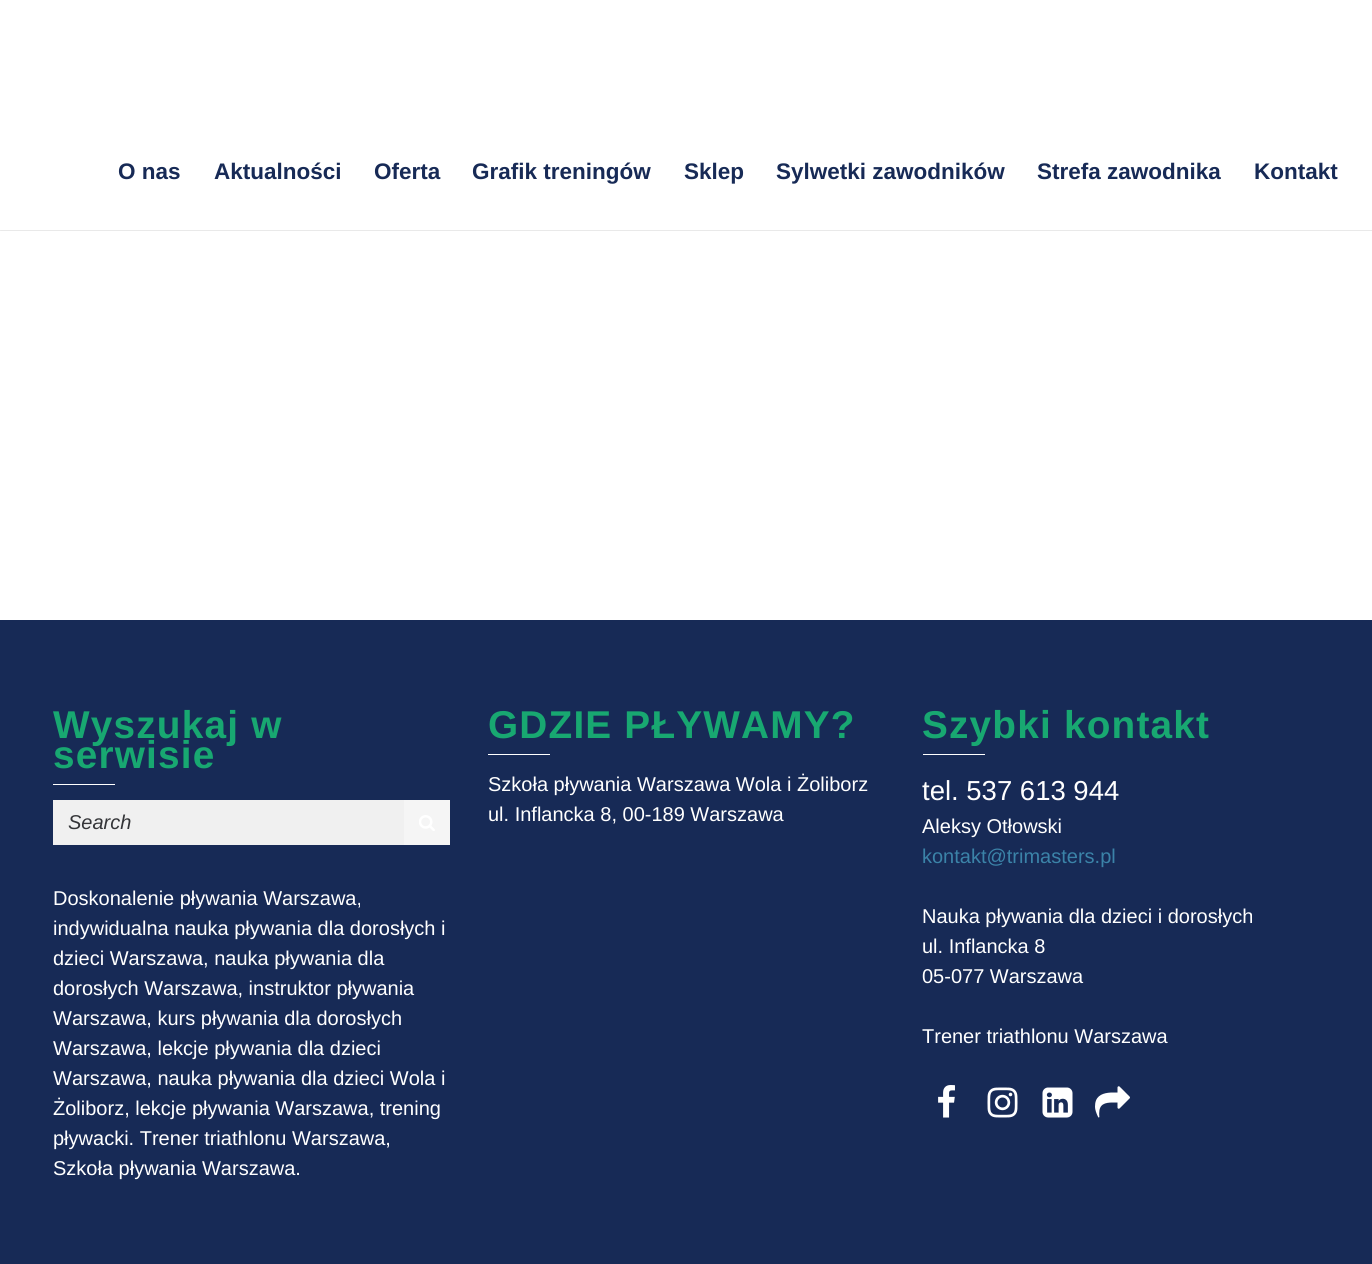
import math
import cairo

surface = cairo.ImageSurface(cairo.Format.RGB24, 1372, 1264)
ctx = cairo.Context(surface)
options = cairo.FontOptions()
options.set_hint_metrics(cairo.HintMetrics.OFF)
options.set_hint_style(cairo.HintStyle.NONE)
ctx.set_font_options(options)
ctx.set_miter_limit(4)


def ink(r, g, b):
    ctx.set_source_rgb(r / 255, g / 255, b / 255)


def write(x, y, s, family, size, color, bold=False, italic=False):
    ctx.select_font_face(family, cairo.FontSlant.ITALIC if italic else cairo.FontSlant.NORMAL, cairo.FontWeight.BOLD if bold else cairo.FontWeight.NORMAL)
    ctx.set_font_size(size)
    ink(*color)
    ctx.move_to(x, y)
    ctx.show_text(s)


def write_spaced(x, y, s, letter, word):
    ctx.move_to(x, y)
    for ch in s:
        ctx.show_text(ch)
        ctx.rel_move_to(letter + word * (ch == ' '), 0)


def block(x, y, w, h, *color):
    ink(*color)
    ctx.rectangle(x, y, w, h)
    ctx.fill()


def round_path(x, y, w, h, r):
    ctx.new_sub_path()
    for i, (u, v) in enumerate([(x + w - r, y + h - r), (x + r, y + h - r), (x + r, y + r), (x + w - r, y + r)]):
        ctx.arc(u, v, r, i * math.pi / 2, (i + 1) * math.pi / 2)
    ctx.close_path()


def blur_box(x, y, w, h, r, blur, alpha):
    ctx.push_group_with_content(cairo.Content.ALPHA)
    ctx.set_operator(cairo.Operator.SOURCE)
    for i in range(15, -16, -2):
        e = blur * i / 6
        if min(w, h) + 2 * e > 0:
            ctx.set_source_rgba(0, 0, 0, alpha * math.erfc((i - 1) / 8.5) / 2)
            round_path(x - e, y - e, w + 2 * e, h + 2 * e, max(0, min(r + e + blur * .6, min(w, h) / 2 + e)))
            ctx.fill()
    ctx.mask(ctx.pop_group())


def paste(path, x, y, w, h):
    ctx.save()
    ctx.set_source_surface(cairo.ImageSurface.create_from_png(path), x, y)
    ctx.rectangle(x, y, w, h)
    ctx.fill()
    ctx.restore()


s1 = dict(family="Liberation Sans", size=22.5, color=(23, 42, 86), bold=True)
s2 = dict(family="Liberation Sans", size=20, color=(52, 53, 56), italic=True)
s3 = dict(family="Liberation Sans", size=20, color=(255, 255, 255))
s4 = dict(family="Liberation Sans", size=27.5, color=(255, 255, 255))
s5 = dict(family="Liberation Sans", size=20, color=(59, 131, 168))

ink(255, 255, 255)
ctx.paint()
ctx.save()
ctx.rectangle(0, 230, 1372, 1)
ctx.clip()
ink(0, 0, 0)
blur_box(0, -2, 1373, 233, 0, 0.5, 0.1)
ctx.restore()
write(118, 179, "O nas", **s1)
write(214, 179, "Aktualności", **s1)
write(374, 179, "Oferta", **s1)
write(472, 179, "Grafik treningów", **s1)
write(684, 179, "Sklep", **s1)
write(776, 179, "Sylwetki zawodników", **s1)
write(1037, 179, "Strefa zawodnika", **s1)
write(1254, 179, "Kontakt", **s1)
block(0, 620, 1372, 644, 23, 42, 86)
ctx.set_font_size(38.75)
ink(24, 168, 113)
write_spaced(53, 738, "Wyszukaj w", 1.2, 0)
write_spaced(53, 768, "serwisie", 1.2, 0)
block(53, 784, 62, 1, 255, 255, 255)
block(53, 800, 351, 45, 240, 240, 240)
write(68, 829, "Search", **s2)
block(404, 800, 46, 45, 245, 245, 245)
paste("pic1.png", 419, 815, 16, 16)
write(53, 905, "Doskonalenie pływania Warszawa,", **s3)
write(53, 935, "indywidualna nauka pływania dla dorosłych i", **s3)
write(53, 965, "dzieci Warszawa, nauka pływania dla", **s3)
write(53, 995, "dorosłych Warszawa, instruktor pływania", **s3)
write(53, 1025, "Warszawa, kurs pływania dla dorosłych", **s3)
write(53, 1055, "Warszawa, lekcje pływania dla dzieci", **s3)
write(53, 1085, "Warszawa, nauka pływania dla dzieci Wola i", **s3)
write(53, 1115, "Żoliborz, lekcje pływania Warszawa, trening", **s3)
write(53, 1145, "pływacki. Trener triathlonu Warszawa,", **s3)
write(53, 1175, "Szkoła pływania Warszawa.", **s3)
ctx.select_font_face("Liberation Sans", cairo.FontSlant.NORMAL, cairo.FontWeight.BOLD)
ctx.set_font_size(38.75)
ink(24, 168, 113)
write_spaced(488, 738, "GDZIE PŁYWAMY?", 1.2, 0)
block(488, 754, 62, 1, 255, 255, 255)
write(488, 791, "Szkoła pływania Warszawa Wola i Żoliborz", **s3)
write(488, 821, "ul. Inflancka 8, 00-189 Warszawa", **s3)
ctx.select_font_face("Liberation Sans", cairo.FontSlant.NORMAL, cairo.FontWeight.BOLD)
ctx.set_font_size(38.75)
ink(24, 168, 113)
write_spaced(922, 738, "Szybki kontakt", 1.2, 0)
block(923, 754, 62, 1, 255, 255, 255)
write(922, 800, "tel. 537 613 944", **s4)
write(922, 833, "Aleksy Otłowski", **s3)
write(922, 863, "kontakt@trimasters.pl", **s5)
write(922, 923, "Nauka pływania dla dzieci i dorosłych", **s3)
write(922, 953, "ul. Inflancka 8", **s3)
write(922, 983, "05-077 Warszawa", **s3)
write(922, 1043, "Trener triathlonu Warszawa", **s3)
paste("pic2.png", 938, 1085, 17, 33)
paste("pic3.png", 987, 1087, 31, 31)
paste("pic4.png", 1042, 1087, 31, 31)
paste("pic5.png", 1095, 1086, 35, 32)
surface.write_to_png("screenshot.png")
